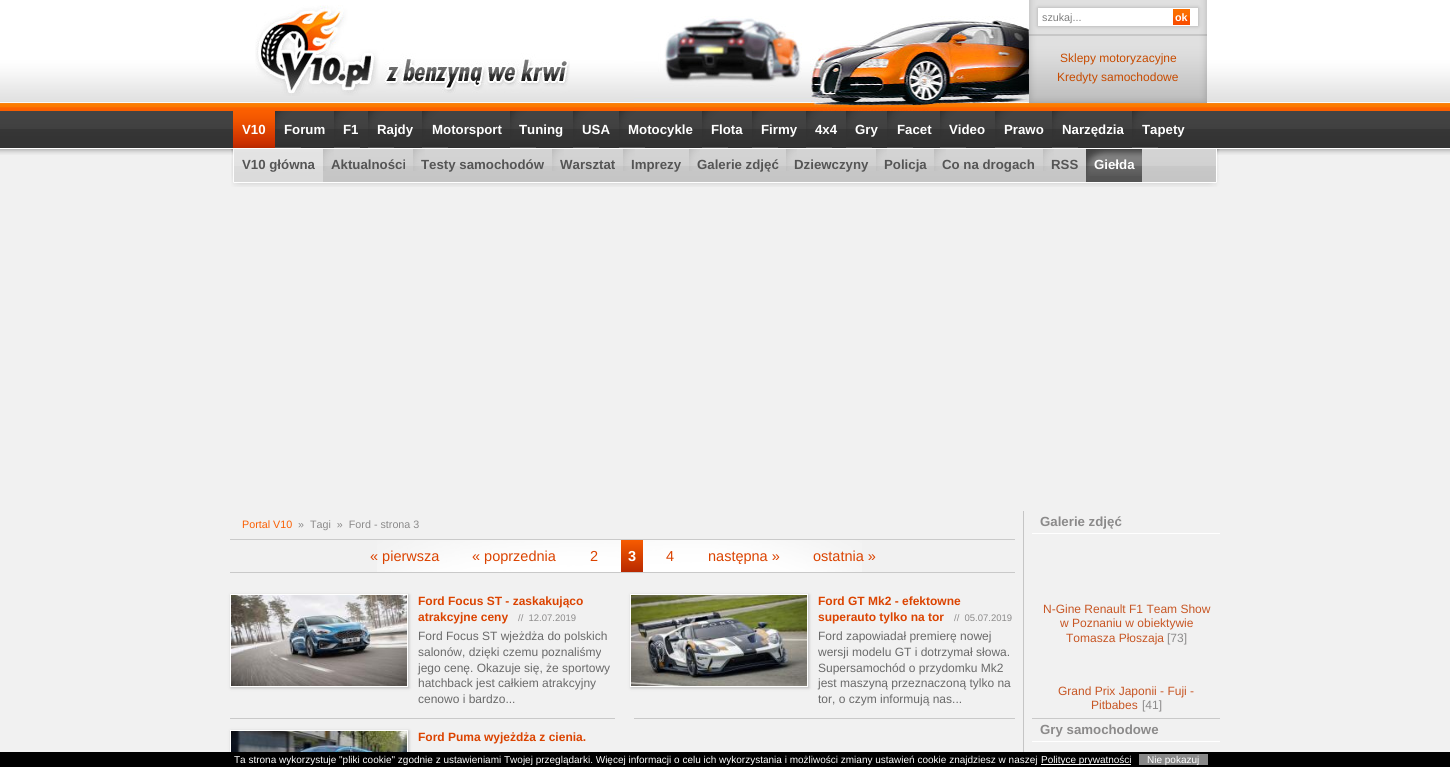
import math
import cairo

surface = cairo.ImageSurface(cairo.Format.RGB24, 1450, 767)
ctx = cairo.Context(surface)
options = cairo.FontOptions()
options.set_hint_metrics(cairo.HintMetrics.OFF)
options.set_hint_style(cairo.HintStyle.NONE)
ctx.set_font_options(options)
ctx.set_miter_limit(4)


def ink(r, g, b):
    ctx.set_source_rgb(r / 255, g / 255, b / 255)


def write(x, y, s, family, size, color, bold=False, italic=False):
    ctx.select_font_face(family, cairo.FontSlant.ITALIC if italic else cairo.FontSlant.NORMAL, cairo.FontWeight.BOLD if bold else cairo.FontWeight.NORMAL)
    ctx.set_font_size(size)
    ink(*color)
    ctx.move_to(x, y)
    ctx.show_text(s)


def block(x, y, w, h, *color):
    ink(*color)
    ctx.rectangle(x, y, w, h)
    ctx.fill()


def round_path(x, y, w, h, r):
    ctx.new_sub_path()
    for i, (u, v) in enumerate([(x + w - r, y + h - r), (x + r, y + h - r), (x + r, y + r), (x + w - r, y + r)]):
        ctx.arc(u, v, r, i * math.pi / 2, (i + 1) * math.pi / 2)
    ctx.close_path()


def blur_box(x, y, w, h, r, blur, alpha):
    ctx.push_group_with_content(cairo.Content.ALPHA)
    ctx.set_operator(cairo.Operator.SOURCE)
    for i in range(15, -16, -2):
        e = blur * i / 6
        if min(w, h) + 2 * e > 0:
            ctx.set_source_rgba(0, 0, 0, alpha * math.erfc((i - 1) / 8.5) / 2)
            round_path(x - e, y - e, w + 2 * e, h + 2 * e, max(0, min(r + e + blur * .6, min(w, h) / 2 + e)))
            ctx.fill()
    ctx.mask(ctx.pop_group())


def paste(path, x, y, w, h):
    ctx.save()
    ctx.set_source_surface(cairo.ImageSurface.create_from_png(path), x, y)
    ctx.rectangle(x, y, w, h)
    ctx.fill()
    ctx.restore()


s1 = dict(family="Liberation Sans", size=10.75, color=(128, 128, 128))
s2 = dict(family="Liberation Sans", size=10.75, color=(255, 255, 255), bold=True)
s3 = dict(family="Liberation Sans", size=12, color=(199, 75, 0))
s4 = dict(family="Liberation Sans", size=13.25, color=(255, 255, 255), bold=True)
s5 = dict(family="Liberation Sans", size=13.25, color=(85, 85, 85), bold=True)
s6 = dict(family="Liberation Sans", size=10.75, color=(250, 95, 2))
s7 = dict(family="Liberation Sans", size=10.75, color=(139, 138, 138))
s8 = dict(family="Liberation Sans", size=14.5, color=(219, 67, 0))
s9 = dict(family="Liberation Sans", size=14.5, color=(255, 255, 255), bold=True)
s10 = dict(family="Liberation Sans", size=12, color=(219, 67, 0), bold=True)
s11 = dict(family="Liberation Sans", size=9.5, color=(139, 138, 138))
s12 = dict(family="Liberation Sans", size=12, color=(105, 105, 105))
s13 = dict(family="Liberation Sans", size=13.25, color=(139, 138, 138), bold=True)
s14 = dict(family="Liberation Sans", size=12, color=(199, 86, 36))
s15 = dict(family="Liberation Sans", size=12, color=(139, 138, 138))
s16 = dict(family="Liberation Sans", size=10, color=(255, 255, 255))

ink(241, 241, 241)
ctx.paint()
paste("pic1.png", 0, 0, 1450, 155)
paste("pic2.png", 233, 0, 984, 111)
paste("pic3.png", 255, 5, 315, 91)
paste("pic4.png", 634, 16, 395, 95)
paste("pic5.png", 1029, 0, 178, 103)
ink(170, 170, 170)
blur_box(1038, 8, 160, 18, 0, 2, 1)
block(1038, 8, 160, 18, 255, 255, 255)
write(1042, 21, "szukaj...", **s1)
paste("pic6.png", 1173, 9, 17, 16)
write(1175, 21, "ok", **s2)
write(1060, 62, "Sklepy motoryzacyjne", **s3)
write(1057, 81, "Kredyty samochodowe", **s3)
paste("pic7.png", 233, 111, 42, 37)
write(242, 134, "V10", **s4)
paste("pic8.png", 275, 111, 26, 37)
write(284, 134, "Forum", **s4)
paste("pic8.png", 334, 111, 26, 37)
write(343, 134, "F1", **s4)
paste("pic8.png", 368, 111, 26, 37)
write(377, 134, "Rajdy", **s4)
paste("pic8.png", 422, 111, 26, 37)
write(432, 134, "Motorsport", **s4)
paste("pic8.png", 510, 111, 26, 37)
write(519, 134, "Tuning", **s4)
paste("pic8.png", 573, 111, 26, 37)
write(582, 134, "USA", **s4)
paste("pic8.png", 619, 111, 26, 37)
write(628, 134, "Motocykle", **s4)
paste("pic8.png", 702, 111, 26, 37)
write(711, 134, "Flota", **s4)
paste("pic8.png", 752, 111, 26, 37)
write(761, 134, "Firmy", **s4)
paste("pic8.png", 806, 111, 26, 37)
write(815, 134, "4x4", **s4)
paste("pic8.png", 846, 111, 26, 37)
write(855, 134, "Gry", **s4)
paste("pic8.png", 887, 111, 26, 37)
write(897, 134, "Facet", **s4)
paste("pic8.png", 940, 111, 26, 37)
write(949, 134, "Video", **s4)
paste("pic9.png", 995, 111, 27, 37)
write(1004, 134, "Prawo", **s4)
paste("pic8.png", 1052, 111, 26, 37)
write(1062, 134, "Narzędzia", **s4)
paste("pic8.png", 1132, 111, 26, 37)
write(1142, 134, "Tapety", **s4)
paste("pic10.png", 231, 149, 989, 38)
paste("pic11.png", 234, 149, 89, 33)
write(242, 169, "V10 główna", **s5)
paste("pic12.png", 323, 149, 11, 22)
write(331, 169, "Aktualności", **s5)
paste("pic13.png", 413, 149, 12, 22)
write(421, 169, "Testy samochodów", **s5)
paste("pic13.png", 552, 149, 12, 22)
write(560, 169, "Warsztat", **s5)
paste("pic13.png", 623, 149, 12, 22)
write(631, 169, "Imprezy", **s5)
paste("pic12.png", 689, 149, 11, 22)
write(697, 169, "Galerie zdjęć", **s5)
paste("pic12.png", 786, 149, 11, 22)
write(794, 169, "Dziewczyny", **s5)
paste("pic12.png", 876, 149, 11, 22)
write(884, 169, "Policja", **s5)
paste("pic13.png", 934, 149, 12, 22)
write(942, 169, "Co na drogach", **s5)
paste("pic12.png", 1043, 149, 11, 22)
write(1051, 169, "RSS", **s5)
block(1086, 176, 56, 6, 85, 85, 85)
paste("pic14.png", 1086, 149, 56, 27)
write(1094, 169, "Giełda", **s4)
block(1023, 511, 1, 241, 197, 197, 197)
block(230, 539, 785, 1, 202, 202, 202)
write(242, 528, "Portal V10", **s6)
write(298, 528, "»  Tagi  »  Ford - strona 3", **s7)
paste("pic15.png", 377, 540, 485, 32)
block(230, 572, 785, 1, 201, 201, 201)
write(370, 561, "« pierwsza", **s8)
write(472, 561, "« poprzednia", **s8)
write(590, 561, "2", **s8)
gradient = cairo.LinearGradient(632, 540, 632, 572)
gradient.add_color_stop_rgba(0, 0.969, 0.357, 0, 1)
gradient.add_color_stop_rgba(1, 0.722, 0.161, 0, 1)
ctx.set_source(gradient)
ctx.rectangle(621, 540, 22, 32)
ctx.fill()
write(628, 561, "3", **s9)
write(666, 561, "4", **s8)
write(708, 561, "następna »", **s8)
write(813, 561, "ostatnia »", **s8)
ink(187, 187, 187)
blur_box(231, 595, 178, 93, 0, 1.5, 1)
ctx.rectangle(230.5, 594.5, 177, 92)
ink(255, 255, 255)
ctx.set_line_width(1)
ctx.stroke()
paste("pic16.png", 231, 595, 176, 91)
write(418, 605, "Ford Focus ST - zaskakująco", **s10)
write(418, 621, "atrakcyjne ceny", **s10)
write(518, 621, "//  12.07.2019", **s11)
write(418, 640, "Ford Focus ST wjeżdża do polskich", **s12)
write(418, 656, "salonów, dzięki czemu poznaliśmy", **s12)
write(418, 672, "jego cenę. Okazuje się, że sportowy", **s12)
write(418, 687, "hatchback jest całkiem atrakcyjny", **s12)
write(418, 703, "cenowo i bardzo...", **s12)
ink(187, 187, 187)
blur_box(631, 595, 178, 93, 0, 1.5, 1)
ctx.rectangle(630.5, 594.5, 177, 92)
ink(255, 255, 255)
ctx.stroke()
paste("pic17.png", 631, 595, 176, 91)
write(818, 605, "Ford GT Mk2 - efektowne", **s10)
write(818, 621, "superauto tylko na tor", **s10)
write(954, 621, "//  05.07.2019", **s11)
write(818, 640, "Ford zapowiadał premierę nowej", **s12)
write(818, 656, "wersji modelu GT i dotrzymał słowa.", **s12)
write(818, 672, "Supersamochód o przydomku Mk2", **s12)
write(818, 687, "jest maszyną przeznaczoną tylko na", **s12)
write(818, 703, "tor, o czym informują nas...", **s12)
block(634, 718, 381, 1, 201, 201, 201)
block(230, 718, 385, 1, 201, 201, 201)
ink(187, 187, 187)
blur_box(231, 731, 178, 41, 0, 1.5, 1)
ctx.rectangle(230.5, 730.5, 177, 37)
ink(255, 255, 255)
ctx.stroke()
paste("pic18.png", 231, 731, 176, 21)
write(418, 741, "Ford Puma wyjeżdża z cienia.", **s10)
block(1032, 533, 188, 1, 255, 255, 255)
write(1040, 526, "Galerie zdjęć", **s13)
block(1032, 718, 188, 1, 201, 201, 201)
write(1043, 613, "N-Gine Renault F1 Team Show", **s14)
write(1060, 627, "w Poznaniu w obiektywie", **s14)
write(1066, 642, "Tomasza Płoszaja", **s14)
write(1167, 642, "[73]", **s15)
write(1058, 695, "Grand Prix Japonii - Fuji -", **s14)
write(1091, 709, "Pitbabes", **s14)
write(1142, 709, "[41]", **s15)
block(1032, 741, 188, 1, 255, 255, 255)
write(1040, 734, "Gry samochodowe", **s13)
block(0, 752, 1450, 15, 0, 0, 0)
write(234, 763, "Ta strona wykorzystuje \"pliki cookie\" zgodnie z ustawieniami Twojej przeglądarki. Więcej informacji o celu ich wykorzystania i możliwości zmiany ustawień cookie znajdziesz w naszej", **s16)
block(1041, 764, 90, 1, 255, 255, 255)
write(1041, 763, "Polityce prywatności", **s16)
block(1139, 754, 69, 11, 136, 136, 136)
write(1147, 763, "Nie pokazuj", **s16)
surface.write_to_png("screenshot.png")
